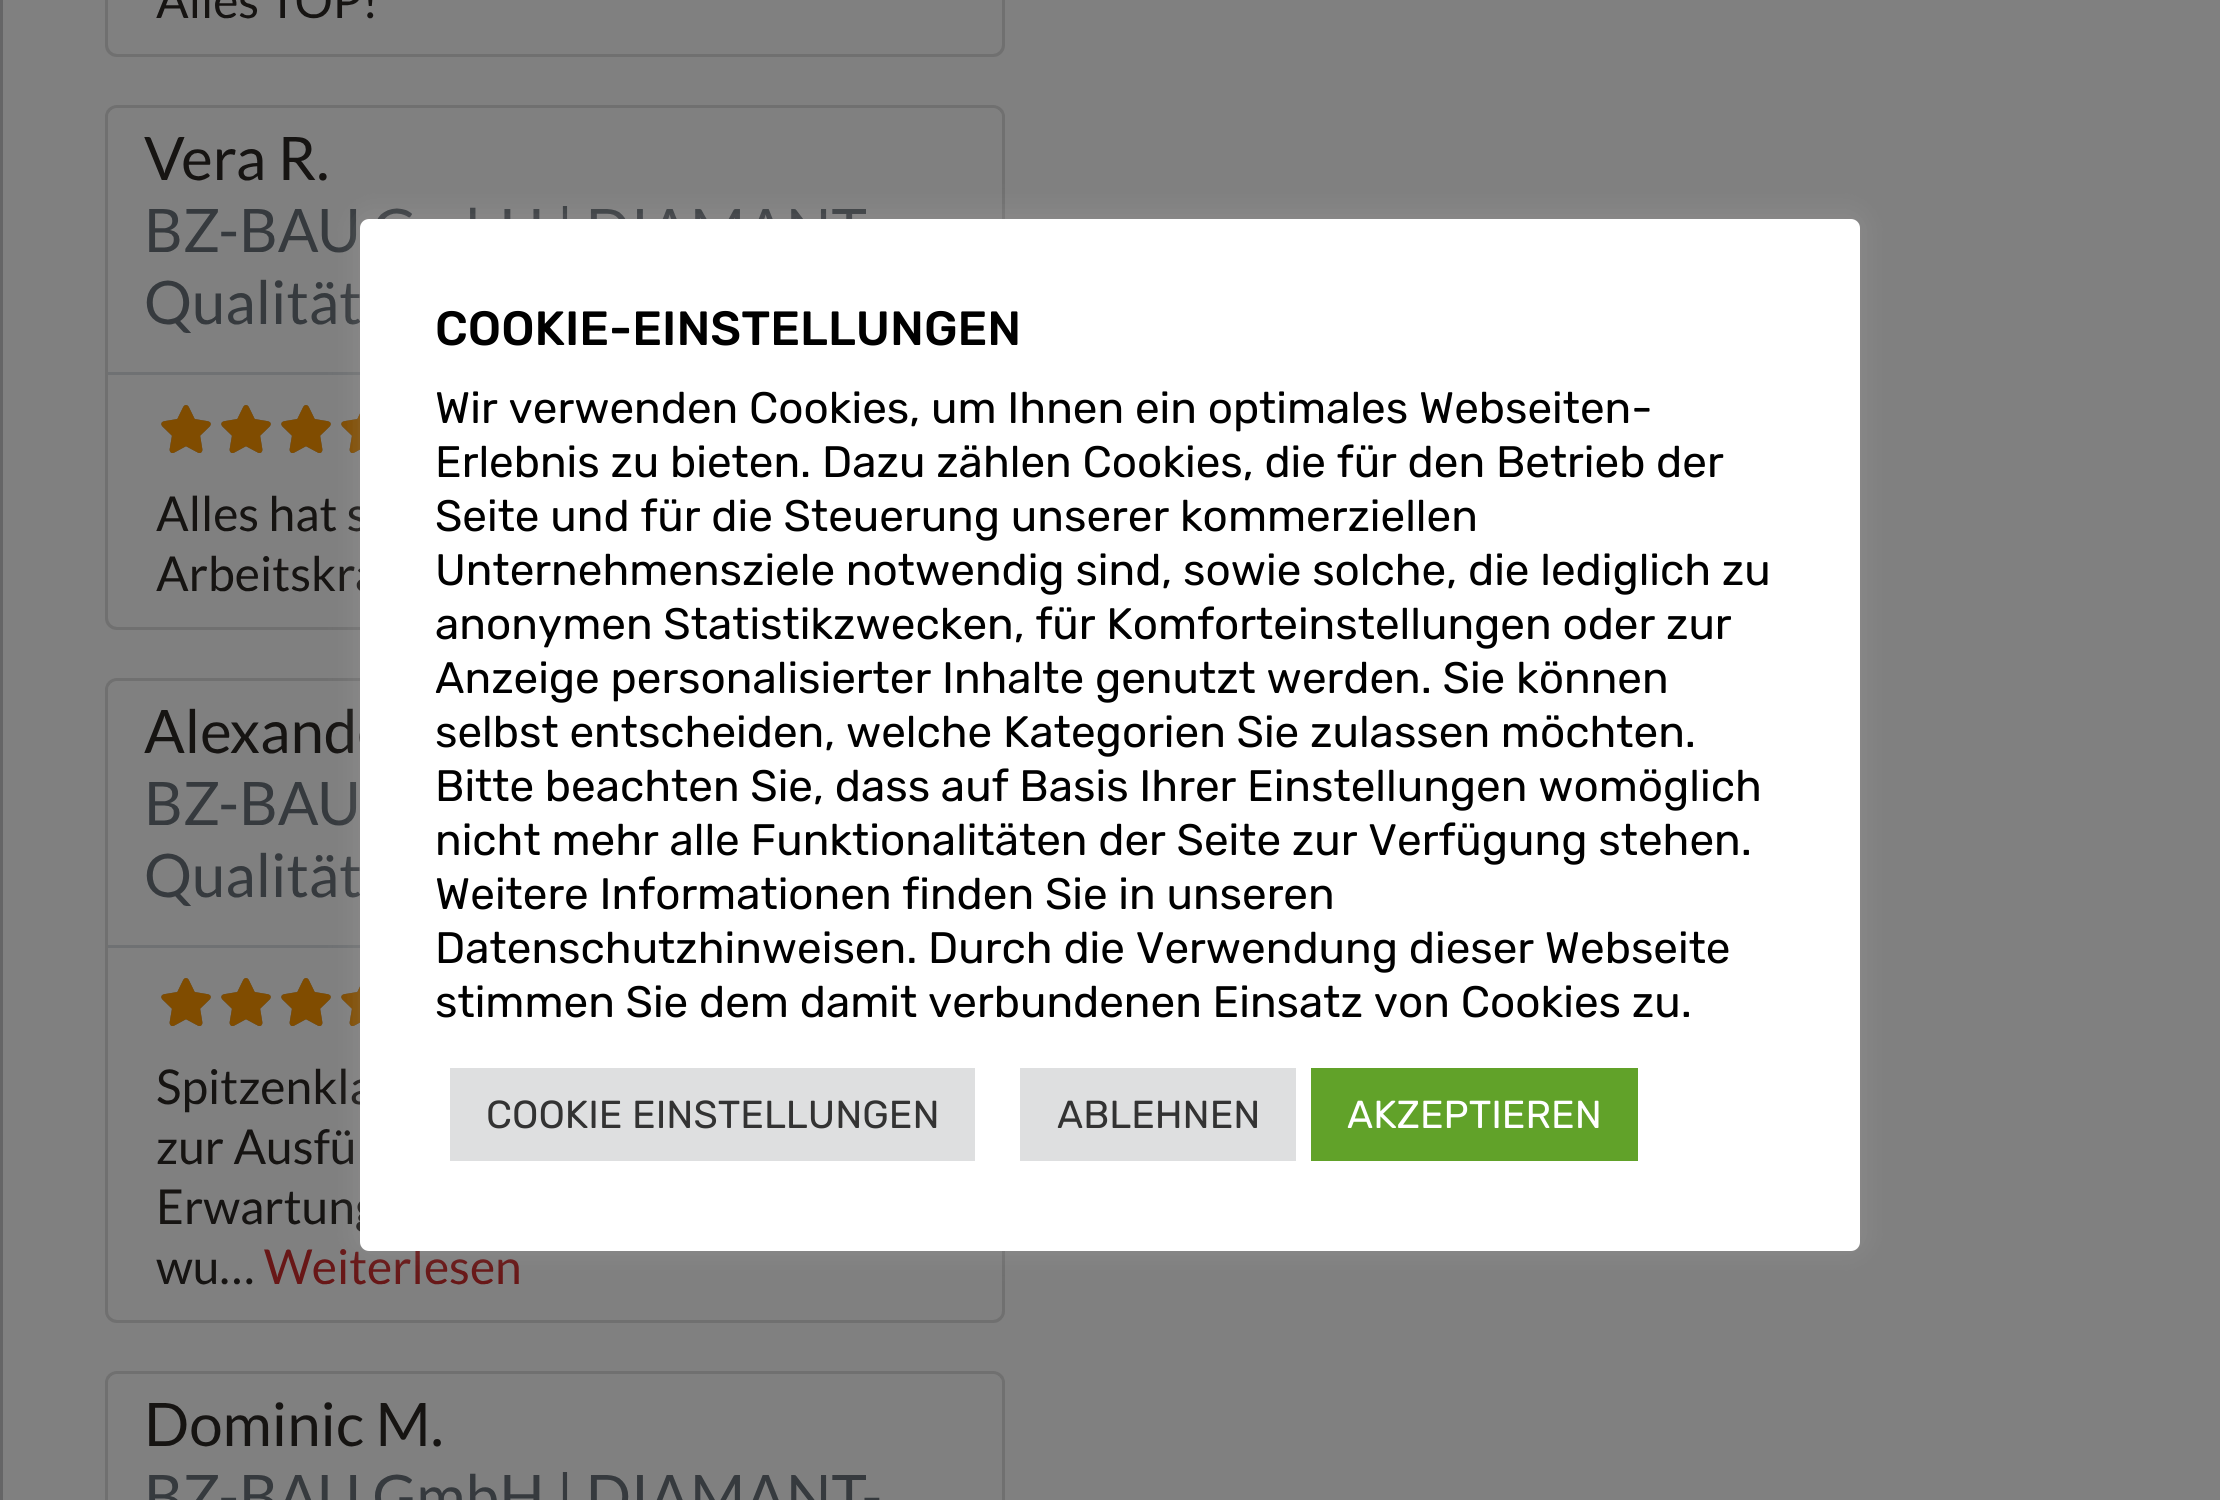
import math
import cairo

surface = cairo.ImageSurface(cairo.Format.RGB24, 2220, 1500)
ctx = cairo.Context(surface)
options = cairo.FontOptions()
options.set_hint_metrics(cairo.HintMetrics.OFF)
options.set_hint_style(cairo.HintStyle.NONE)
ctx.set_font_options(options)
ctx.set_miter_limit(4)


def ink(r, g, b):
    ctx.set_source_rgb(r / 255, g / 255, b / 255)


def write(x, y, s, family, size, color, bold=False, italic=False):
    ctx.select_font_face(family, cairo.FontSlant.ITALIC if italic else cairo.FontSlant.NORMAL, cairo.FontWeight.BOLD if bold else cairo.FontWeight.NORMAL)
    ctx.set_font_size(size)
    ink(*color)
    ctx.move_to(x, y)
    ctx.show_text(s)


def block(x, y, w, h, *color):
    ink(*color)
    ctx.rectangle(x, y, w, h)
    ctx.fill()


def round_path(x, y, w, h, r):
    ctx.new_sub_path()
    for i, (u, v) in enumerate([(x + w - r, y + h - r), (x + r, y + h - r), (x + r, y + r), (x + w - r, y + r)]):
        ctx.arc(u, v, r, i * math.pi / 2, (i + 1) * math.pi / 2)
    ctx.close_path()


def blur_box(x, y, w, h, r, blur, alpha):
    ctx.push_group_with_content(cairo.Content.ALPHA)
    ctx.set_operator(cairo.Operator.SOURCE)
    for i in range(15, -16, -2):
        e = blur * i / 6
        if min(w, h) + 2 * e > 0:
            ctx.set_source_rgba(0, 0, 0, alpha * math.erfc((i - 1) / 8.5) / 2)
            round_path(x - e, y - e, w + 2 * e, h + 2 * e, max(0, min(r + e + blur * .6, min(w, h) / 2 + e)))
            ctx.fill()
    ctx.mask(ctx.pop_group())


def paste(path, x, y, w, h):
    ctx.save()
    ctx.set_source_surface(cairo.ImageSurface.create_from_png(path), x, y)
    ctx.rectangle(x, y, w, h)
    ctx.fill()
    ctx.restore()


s1 = dict(family="Rubik Medium", size=48, color=(0, 0, 0))
s2 = dict(family="Rubik", size=44, color=(0, 0, 0))
s3 = dict(family="Rubik", size=39, color=(51, 51, 51))
s4 = dict(family="Rubik", size=39, color=(255, 255, 255))

ink(128, 128, 128)
ctx.paint()
block(0, 0, 3, 1500, 101, 101, 102)
paste("pic1.png", 105, 0, 900, 1500)
ink(172, 171, 171)
blur_box(360, 216, 1500, 1032, 9, 15, 0.3)
ink(255, 255, 255)
round_path(360, 219, 1500, 1032, 9)
ctx.fill()
write(435, 345, "COOKIE-EINSTELLUNGEN", **s1)
write(435, 423, "Wir verwenden Cookies, um Ihnen ein optimales Webseiten-", **s2)
write(435, 477, "Erlebnis zu bieten. Dazu zählen Cookies, die für den Betrieb der", **s2)
write(435, 531, "Seite und für die Steuerung unserer kommerziellen", **s2)
write(435, 585, "Unternehmensziele notwendig sind, sowie solche, die lediglich zu", **s2)
write(435, 639, "anonymen Statistikzwecken, für Komforteinstellungen oder zur", **s2)
write(435, 693, "Anzeige personalisierter Inhalte genutzt werden. Sie können", **s2)
write(435, 747, "selbst entscheiden, welche Kategorien Sie zulassen möchten.", **s2)
write(435, 801, "Bitte beachten Sie, dass auf Basis Ihrer Einstellungen womöglich", **s2)
write(435, 855, "nicht mehr alle Funktionalitäten der Seite zur Verfügung stehen.", **s2)
write(435, 909, "Weitere Informationen finden Sie in unseren", **s2)
write(435, 963, "Datenschutzhinweisen. Durch die Verwendung dieser Webseite", **s2)
write(435, 1017, "stimmen Sie dem damit verbundenen Einsatz von Cookies zu.", **s2)
block(450, 1068, 525, 93, 222, 223, 224)
write(486, 1128, "COOKIE EINSTELLUNGEN", **s3)
block(1020, 1068, 276, 93, 222, 223, 224)
write(1057, 1128, "ABLEHNEN", **s3)
block(1311, 1068, 327, 93, 97, 162, 41)
write(1347, 1128, "AKZEPTIEREN", **s4)
surface.write_to_png("screenshot.png")
